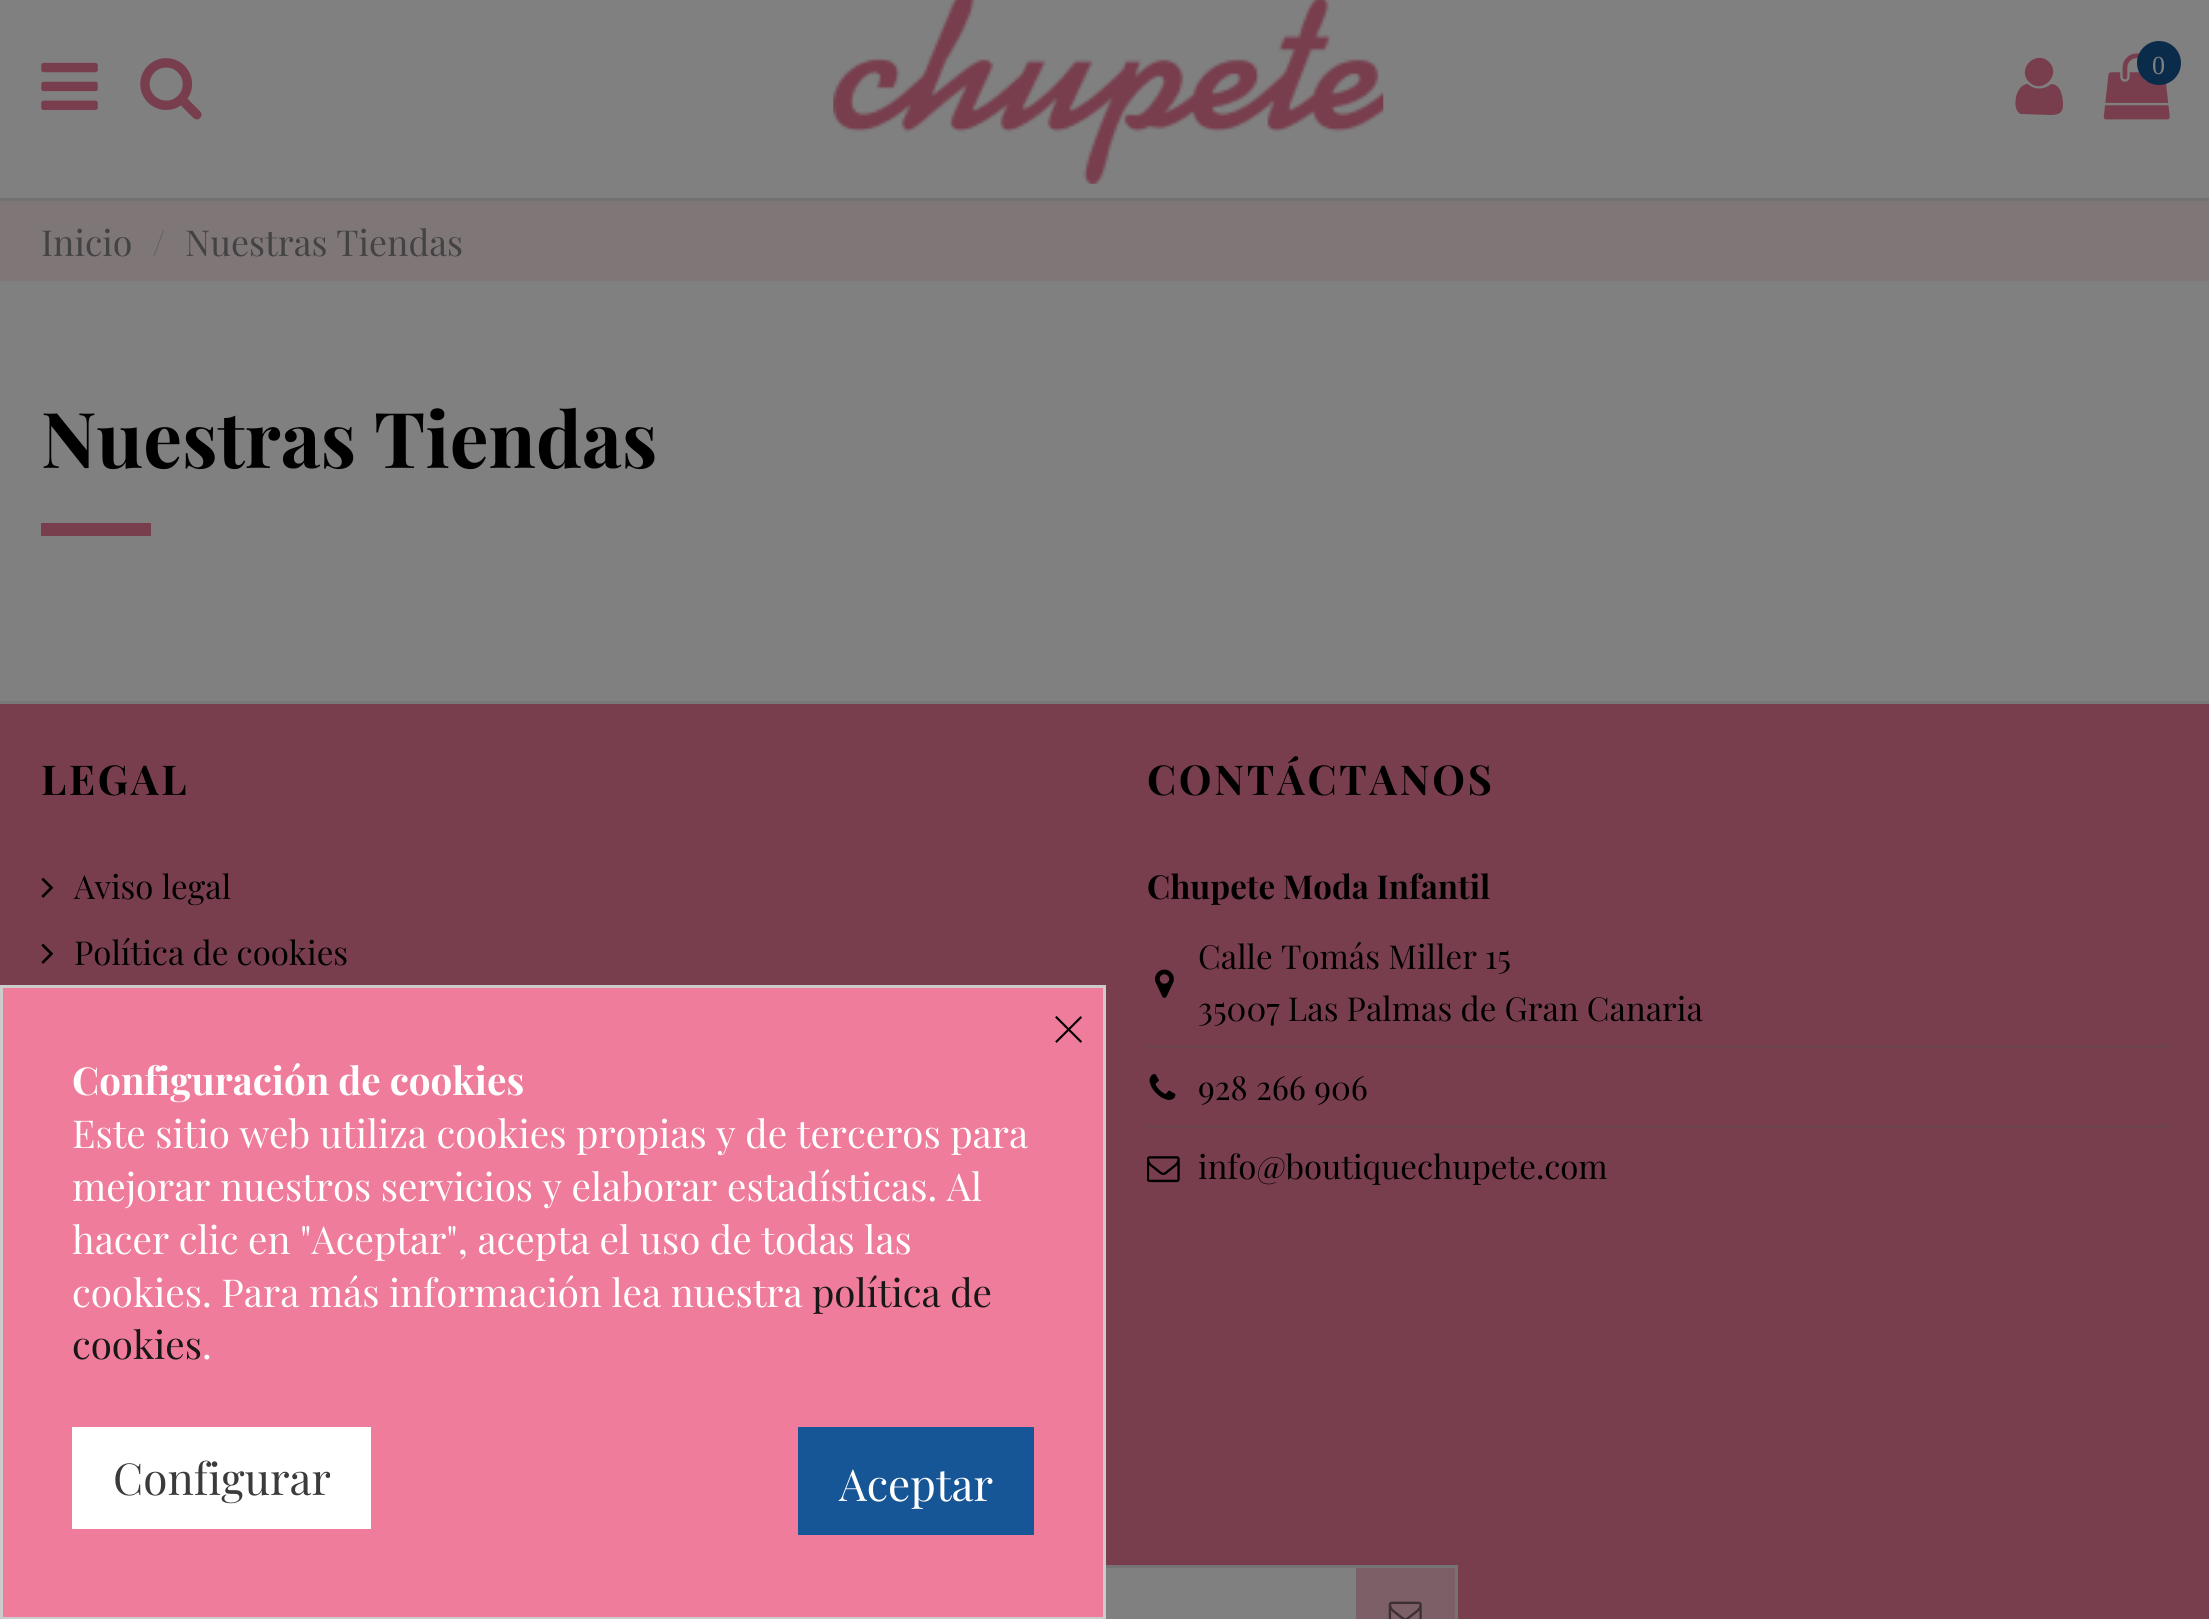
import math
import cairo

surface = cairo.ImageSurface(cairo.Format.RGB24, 2209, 1619)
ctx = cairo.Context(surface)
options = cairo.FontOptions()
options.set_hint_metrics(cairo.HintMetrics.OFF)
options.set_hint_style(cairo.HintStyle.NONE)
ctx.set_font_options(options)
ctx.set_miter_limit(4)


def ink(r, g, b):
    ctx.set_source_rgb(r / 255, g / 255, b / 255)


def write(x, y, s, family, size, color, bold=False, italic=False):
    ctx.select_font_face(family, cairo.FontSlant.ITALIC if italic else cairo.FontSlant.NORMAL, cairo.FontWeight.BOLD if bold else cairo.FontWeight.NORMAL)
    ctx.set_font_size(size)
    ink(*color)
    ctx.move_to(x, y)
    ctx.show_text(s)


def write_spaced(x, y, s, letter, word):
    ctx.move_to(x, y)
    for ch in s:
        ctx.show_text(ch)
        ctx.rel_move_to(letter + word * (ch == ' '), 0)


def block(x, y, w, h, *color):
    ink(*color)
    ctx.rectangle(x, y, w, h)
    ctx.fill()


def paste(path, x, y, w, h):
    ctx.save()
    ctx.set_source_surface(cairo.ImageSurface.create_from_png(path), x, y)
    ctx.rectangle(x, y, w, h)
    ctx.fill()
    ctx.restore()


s1 = dict(family="Liberation Serif", size=26, color=(128, 128, 128))
s2 = dict(family="Playfair Display", size=35.75, color=(67, 67, 67))
s3 = dict(family="Playfair Display", size=35.75, color=(103, 98, 99))
s4 = dict(family="Playfair Display", size=77, color=(0, 0, 0), bold=True)
s5 = dict(family="Playfair Display", size=33, color=(0, 0, 0))
s6 = dict(family="Playfair Display", size=33, color=(0, 0, 0), bold=True)
s7 = dict(family="Playfair Display", size=69, color=(0, 0, 0))
s8 = dict(family="Playfair Display", size=38.5, color=(255, 255, 255), bold=True)
s9 = dict(family="Playfair Display", size=38.5, color=(255, 255, 255))
s10 = dict(family="Playfair Display", size=38.5, color=(23, 23, 23))
s11 = dict(family="Playfair Display", size=44, color=(59, 59, 59))
s12 = dict(family="Playfair Display", size=44, color=(255, 255, 255))

ink(128, 128, 128)
ctx.paint()
block(0, 198, 2209, 3, 114, 114, 114)
paste("pic1.png", 41, 62, 57, 48)
paste("pic2.png", 140, 58, 62, 62)
paste("pic3.png", 833, 0, 551, 184)
ink(120, 62, 78)
ctx.new_path()
ctx.move_to(2063, 105)
ctx.curve_to(2063, 114, 2057, 115, 2050, 115)
ctx.line_to(2021, 114)
ctx.curve_to(2011, 111, 2015, 84, 2028, 84)
ctx.curve_to(2034, 90, 2044, 90, 2051, 84)
ctx.curve_to(2061, 84, 2063, 97, 2063, 105)
ctx.close_path()
ctx.move_to(2049, 62)
ctx.curve_to(2062, 75, 2042, 95, 2029, 82)
ctx.curve_to(2016, 69, 2036, 49, 2049, 62)
ctx.close_path()
ctx.fill()
paste("pic4.png", 2103, 53, 67, 67)
ink(11, 43, 75)
ctx.arc(2159, 63, 22, 0, 2 * math.pi)
ctx.fill()
write(2152, 74, "0", **s1)
block(0, 201, 2209, 80, 127, 118, 120)
write(41, 256, "Inicio", **s2)
write(152, 256, "/", **s3)
write(185, 256, "Nuestras Tiendas", **s2)
write(41, 468, "Nuestras Tiendas", **s4)
block(41, 523, 110, 13, 120, 62, 78)
block(0, 704, 2209, 915, 120, 62, 78)
block(0, 701, 2209, 3, 120, 120, 120)
ctx.set_font_size(41.25)
ink(0, 0, 0)
write_spaced(41, 795, "LEGAL", 2.75, 0)
paste("pic5.png", 41, 877, 13, 21)
write(74, 899, "Aviso legal", **s5)
paste("pic5.png", 41, 943, 13, 21)
write(74, 965, "Política de cookies", **s5)
ctx.select_font_face("Playfair Display", cairo.FontSlant.NORMAL, cairo.FontWeight.BOLD)
ctx.set_font_size(41.25)
write_spaced(1147, 795, "CONTÁCTANOS", 2.75, 0)
write(1147, 899, "Chupete Moda Infantil", **s6)
paste("pic6.png", 1155, 969, 19, 29)
write(1198, 969, "Calle Tomás Miller 15", **s5)
write(1198, 1021, "35007 Las Palmas de Gran Canaria", **s5)
block(1147, 1045, 1023, 3, 110, 67, 78)
paste("pic7.png", 1149, 1074, 27, 26)
write(1198, 1100, "928 266 906", **s5)
block(1147, 1125, 1023, 3, 110, 67, 78)
paste("pic8.png", 1147, 1156, 33, 27)
write(1198, 1179, "info@boutiquechupete.com", **s5)
block(1106, 1568, 250, 51, 128, 128, 128)
ctx.rectangle(42.5, 1566.5, 1414, 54)
ink(116, 116, 116)
ctx.set_line_width(3)
ctx.stroke()
block(1356, 1568, 99, 51, 124, 95, 103)
paste("pic9.png", 1388, 1601, 34, 18)
ink(239, 124, 155)
ctx.rectangle(1.5, 986.5, 1103, 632)
ctx.fill_preserve()
ink(204, 204, 204)
ctx.stroke()
write(1051, 1054, "×", **s7)
write(72, 1095, "Configuración de cookies", **s8)
write(72, 1148, "Este sitio web utiliza cookies propias y de terceros para", **s9)
write(72, 1201, "mejorar nuestros servicios y elaborar estadísticas. Al", **s9)
write(72, 1254, "hacer clic en \"Aceptar\", acepta el uso de todas las", **s9)
write(72, 1307, "cookies. Para más información lea nuestra", **s9)
write(812, 1307, "política de", **s10)
write(72, 1359, "cookies", **s10)
write(202, 1359, ".", **s9)
block(72, 1427, 299, 102, 255, 255, 255)
write(113, 1495, "Configurar", **s11)
block(798, 1427, 236, 108, 22, 86, 150)
write(839, 1501, "Aceptar", **s12)
surface.write_to_png("screenshot.png")
